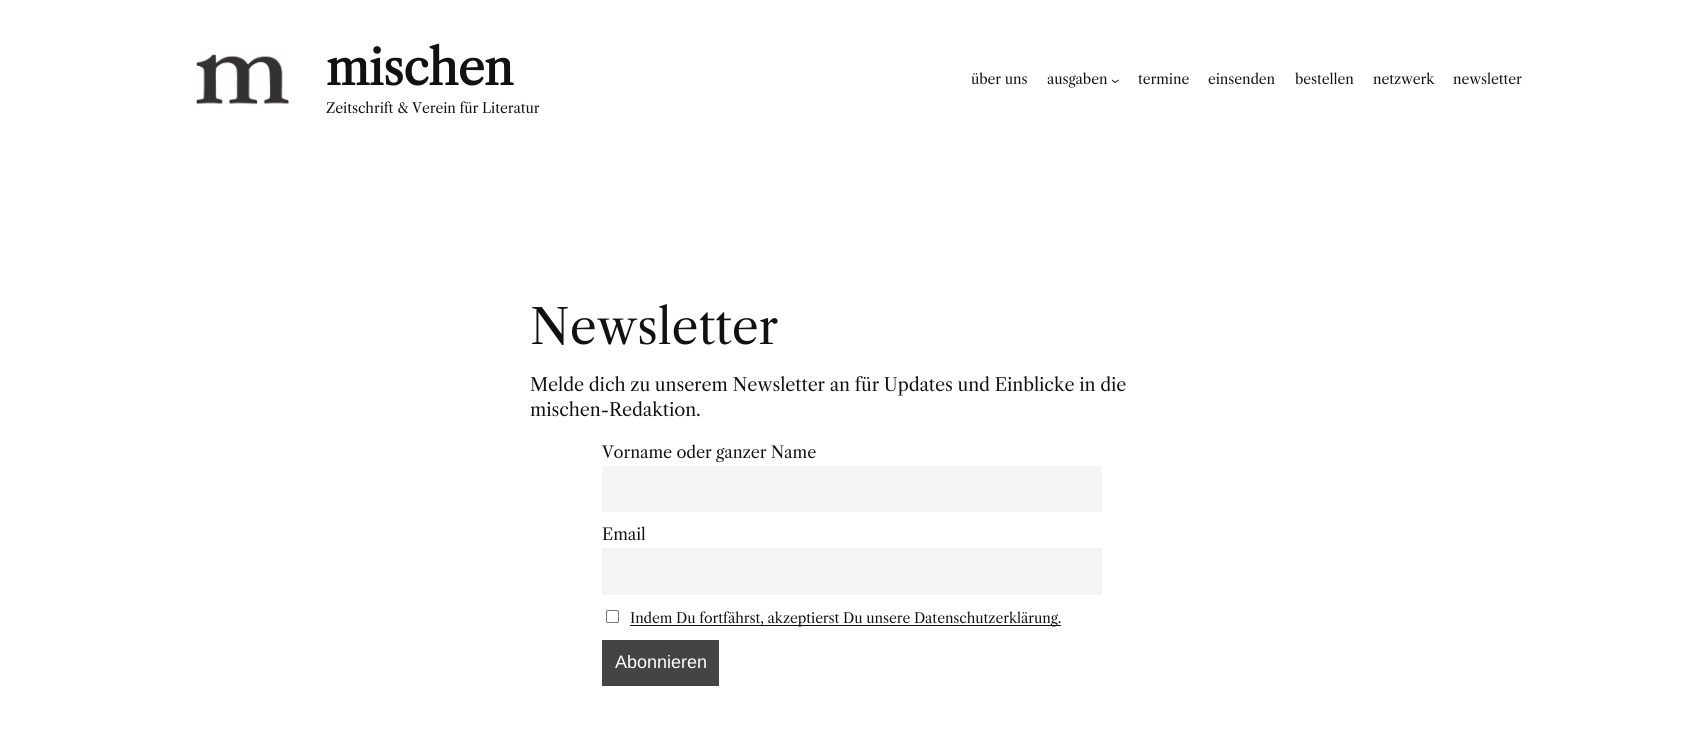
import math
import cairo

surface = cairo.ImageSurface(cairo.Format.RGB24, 1704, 753)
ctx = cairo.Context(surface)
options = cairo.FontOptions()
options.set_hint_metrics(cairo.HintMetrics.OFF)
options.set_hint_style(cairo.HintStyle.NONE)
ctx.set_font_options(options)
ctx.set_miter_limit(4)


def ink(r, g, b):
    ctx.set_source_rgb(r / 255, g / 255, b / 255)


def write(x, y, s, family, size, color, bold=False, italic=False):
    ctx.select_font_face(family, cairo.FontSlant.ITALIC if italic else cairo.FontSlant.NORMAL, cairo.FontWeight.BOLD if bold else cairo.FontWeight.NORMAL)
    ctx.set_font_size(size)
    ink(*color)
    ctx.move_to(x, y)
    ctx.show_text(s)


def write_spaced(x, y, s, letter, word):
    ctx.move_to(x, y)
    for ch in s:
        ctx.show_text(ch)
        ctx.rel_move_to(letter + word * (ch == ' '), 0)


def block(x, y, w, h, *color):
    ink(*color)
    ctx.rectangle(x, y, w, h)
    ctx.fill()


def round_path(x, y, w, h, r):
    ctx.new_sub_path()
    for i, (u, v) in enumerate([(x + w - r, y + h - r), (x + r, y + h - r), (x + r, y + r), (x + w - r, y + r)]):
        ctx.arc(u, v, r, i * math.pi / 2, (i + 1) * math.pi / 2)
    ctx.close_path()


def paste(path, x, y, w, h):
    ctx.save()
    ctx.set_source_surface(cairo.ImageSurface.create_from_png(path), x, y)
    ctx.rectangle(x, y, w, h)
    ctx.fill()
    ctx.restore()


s1 = dict(family="Liberation Sans", size=18, color=(255, 255, 255))

ink(255, 255, 255)
ctx.paint()
paste("pic1.png", 196, 54, 93, 51)
ctx.select_font_face("Libre Caslon Text", cairo.FontSlant.NORMAL, cairo.FontWeight.BOLD)
ctx.set_font_size(48)
ink(17, 17, 17)
write_spaced(326, 85, "mischen", -0.5, 0)
ctx.select_font_face("Libre Caslon Text")
ctx.set_font_size(14)
write_spaced(326, 113, "Zeitschrift & Verein für Literatur", -0.1, 0)
write_spaced(971, 84, "über uns", -0.1, 0)
write_spaced(1047, 84, "ausgaben", -0.1, 0)
ctx.new_path()
ctx.move_to(1112, 80)
ctx.line_to(1115, 82.5)
ctx.line_to(1118.5, 80)
ctx.set_line_width(1)
ctx.stroke()
write_spaced(1138, 84, "termine", -0.1, 0)
write_spaced(1208, 84, "einsenden", -0.1, 0)
write_spaced(1295, 84, "bestellen", -0.1, 0)
write_spaced(1373, 84, "netzwerk", -0.1, 0)
write_spaced(1453, 84, "newsletter", -0.1, 0)
ctx.set_font_size(48)
write_spaced(530, 344, "Newsletter", -0.1, 0)
ctx.set_font_size(18)
write_spaced(530, 391, "Melde dich zu unserem Newsletter an für Updates und Einblicke in die", -0.1, 0)
write_spaced(530, 416, "mischen-Redaktion.", -0.1, 0)
ctx.set_font_size(16.25)
write_spaced(602, 458, "Vorname oder ganzer Name", -0.1, 0)
block(602, 466, 500, 46, 244, 244, 244)
ink(17, 17, 17)
write_spaced(602, 540, "Email", -0.1, 0)
block(602, 548, 500, 47, 244, 244, 244)
round_path(606.5, 610.5, 12, 12, 1.5)
ink(118, 118, 118)
ctx.stroke()
block(630, 625, 431, 1, 17, 17, 17)
ctx.set_font_size(14)
write_spaced(630, 623, "Indem Du fortfährst, akzeptierst Du unsere Datenschutzerklärung.", -0.1, 0)
block(602, 640, 117, 46, 68, 68, 68)
write(615, 668, "Abonnieren", **s1)
surface.write_to_png("screenshot.png")
